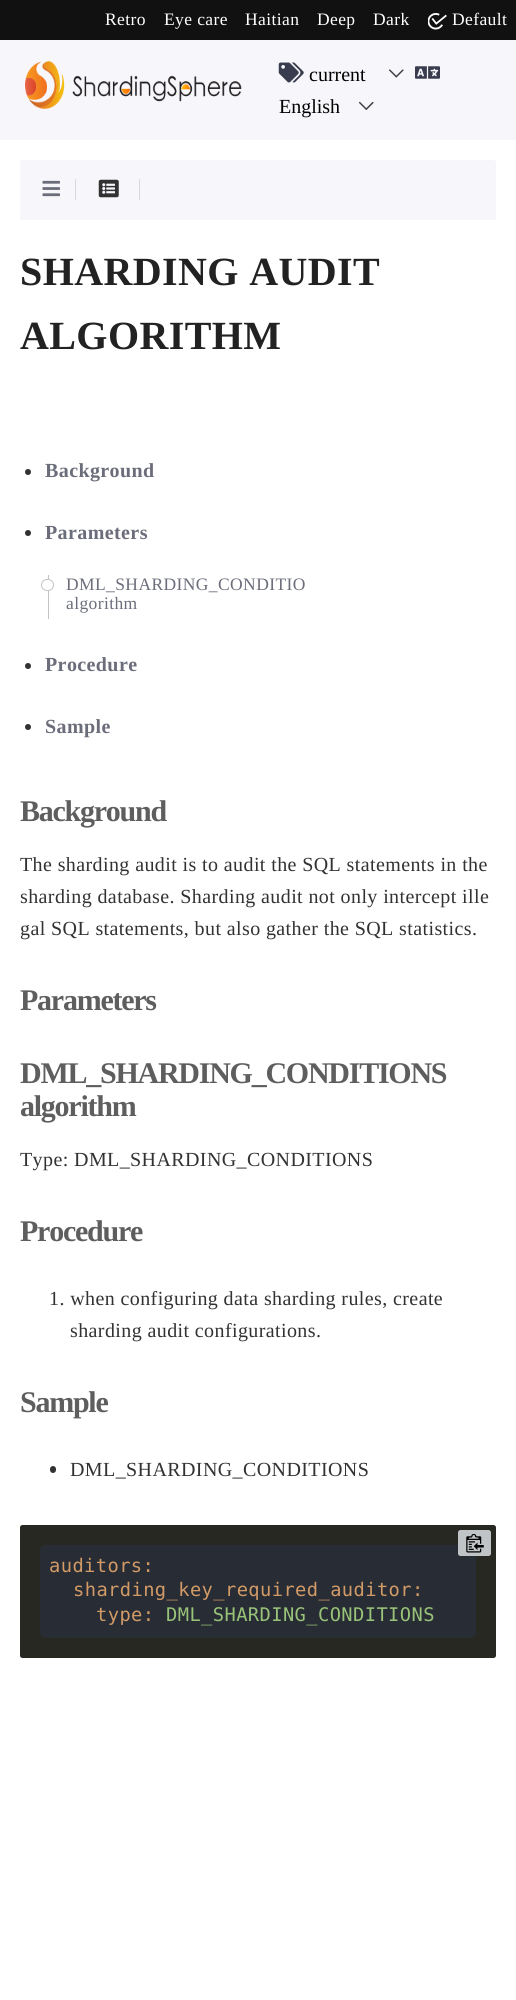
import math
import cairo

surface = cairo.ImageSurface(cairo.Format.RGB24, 516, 2000)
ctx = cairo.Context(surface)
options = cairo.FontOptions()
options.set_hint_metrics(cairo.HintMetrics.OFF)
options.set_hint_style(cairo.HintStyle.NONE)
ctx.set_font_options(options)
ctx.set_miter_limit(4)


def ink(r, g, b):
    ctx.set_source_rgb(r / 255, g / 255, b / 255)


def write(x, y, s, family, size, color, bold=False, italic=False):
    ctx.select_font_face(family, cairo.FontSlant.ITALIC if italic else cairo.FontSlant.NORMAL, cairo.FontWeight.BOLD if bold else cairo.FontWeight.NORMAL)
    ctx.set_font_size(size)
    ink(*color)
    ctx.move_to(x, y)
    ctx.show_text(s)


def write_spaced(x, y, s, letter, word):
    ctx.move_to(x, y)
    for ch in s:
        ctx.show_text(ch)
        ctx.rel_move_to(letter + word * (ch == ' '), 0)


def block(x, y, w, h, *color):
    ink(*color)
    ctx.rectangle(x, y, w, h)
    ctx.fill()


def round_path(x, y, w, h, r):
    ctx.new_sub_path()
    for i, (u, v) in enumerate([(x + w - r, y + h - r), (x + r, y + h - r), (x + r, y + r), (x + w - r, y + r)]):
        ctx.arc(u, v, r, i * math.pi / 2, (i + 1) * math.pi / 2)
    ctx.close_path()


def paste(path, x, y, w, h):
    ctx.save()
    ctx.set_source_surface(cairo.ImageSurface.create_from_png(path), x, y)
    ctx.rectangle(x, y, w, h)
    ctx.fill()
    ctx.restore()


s1 = dict(family="Liberation Serif", size=20, color=(0, 0, 0))

ink(255, 255, 255)
ctx.paint()
block(0, 0, 516, 40, 17, 17, 17)
ctx.select_font_face("Liberation Serif")
ctx.set_font_size(17.5)
ink(255, 255, 255)
write_spaced(105, 25, "Retro", 0.4, 0)
write_spaced(164, 25, "Eye care", 0.4, 0)
write_spaced(245, 25, "Haitian", 0.4, 0)
write_spaced(317, 25, "Deep", 0.4, 0)
write_spaced(373, 25, "Dark", 0.4, 0)
paste("pic1.png", 428, 13, 19, 17)
write_spaced(452, 25, "Default", 0.4, 0)
block(0, 40, 516, 100, 247, 247, 251)
paste("pic2.png", 25, 61, 217, 48)
paste("pic3.png", 278, 62, 26, 21)
write(309, 81, "current", **s1)
paste("pic4.png", 389, 69, 15, 9)
paste("pic5.png", 415, 66, 25, 13)
write(279, 113, "English", **s1)
paste("pic6.png", 359, 101, 15, 10)
ink(247, 247, 251)
round_path(20, 160, 476, 60, 2.5)
ctx.fill()
block(75, 179, 1, 21, 218, 216, 216)
paste("pic7.png", 42, 180, 18, 17)
block(139, 179, 1, 21, 218, 216, 216)
paste("pic8.png", 98, 179, 21, 19)
ctx.select_font_face("Liberation Serif", cairo.FontSlant.NORMAL, cairo.FontWeight.BOLD)
ctx.set_font_size(40)
ink(34, 34, 34)
write_spaced(20, 285, "SHARDING AUDIT", 0.4, 0)
write_spaced(20, 349, "ALGORITHM", 0.4, 0)
ink(50, 50, 50)
ctx.new_path()
ctx.arc(28, 472, 3, 0, 2 * math.pi)
ctx.fill()
ctx.set_font_size(20)
ink(107, 109, 122)
write_spaced(45, 477, "Background", 0.4, 0)
ink(50, 50, 50)
ctx.new_path()
ctx.arc(28, 533, 3, 0, 2 * math.pi)
ctx.fill()
ink(107, 109, 122)
write_spaced(45, 539, "Parameters", 0.4, 0)
block(48, 575, 1, 44, 196, 196, 196)
ink(255, 255, 255)
round_path(41.5, 579.5, 12, 11, 5.5)
ctx.fill_preserve()
ink(196, 196, 196)
ctx.set_line_width(1)
ctx.stroke()
ctx.select_font_face("Liberation Serif")
ctx.set_font_size(17.5)
ink(107, 109, 122)
write_spaced(66, 590, "DML_SHARDING_CONDITIO", 0.4, 0)
write_spaced(66, 609, "algorithm", 0.4, 0)
ink(50, 50, 50)
ctx.new_path()
ctx.arc(28, 666, 3, 0, 2 * math.pi)
ctx.fill()
ctx.select_font_face("Liberation Serif", cairo.FontSlant.NORMAL, cairo.FontWeight.BOLD)
ctx.set_font_size(20)
ink(107, 109, 122)
write_spaced(45, 671, "Procedure", 0.4, 0)
ink(50, 50, 50)
ctx.new_path()
ctx.arc(28, 727, 3, 0, 2 * math.pi)
ctx.fill()
ink(107, 109, 122)
write_spaced(45, 733, "Sample", 0.4, 0)
ctx.set_font_size(30)
ink(94, 94, 94)
write_spaced(20, 821, "Background", -1.25, 0)
ctx.select_font_face("Liberation Serif")
ctx.set_font_size(20)
ink(50, 50, 50)
write_spaced(20, 871, "The sharding audit is to audit the SQL statements in the", 0.4, 0)
write_spaced(20, 903, "sharding database. Sharding audit not only intercept ille", 0.4, 0)
write_spaced(20, 935, "gal SQL statements, but also gather the SQL statistics.", 0.4, 0)
ctx.select_font_face("Liberation Serif", cairo.FontSlant.NORMAL, cairo.FontWeight.BOLD)
ctx.set_font_size(30)
ink(94, 94, 94)
write_spaced(20, 1010, "Parameters", -1.25, 0)
write_spaced(20, 1083, "DML_SHARDING_CONDITIONS", -1.25, 0)
write_spaced(20, 1116, "algorithm", -1.25, 0)
ctx.select_font_face("Liberation Serif")
ctx.set_font_size(20)
ink(50, 50, 50)
write_spaced(20, 1166, "Type: DML_SHARDING_CONDITIONS", 0.4, 0)
ctx.select_font_face("Liberation Serif", cairo.FontSlant.NORMAL, cairo.FontWeight.BOLD)
ctx.set_font_size(30)
ink(94, 94, 94)
write_spaced(20, 1241, "Procedure", -1.25, 0)
ctx.select_font_face("Liberation Serif")
ctx.set_font_size(20)
ink(50, 50, 50)
write_spaced(49, 1305, "1. when configuring data sharding rules, create", 0.4, 0)
write_spaced(70, 1337, "sharding audit configurations.", 0.4, 0)
ctx.select_font_face("Liberation Serif", cairo.FontSlant.NORMAL, cairo.FontWeight.BOLD)
ctx.set_font_size(30)
ink(94, 94, 94)
write_spaced(20, 1412, "Sample", -1.25, 0)
ink(50, 50, 50)
round_path(50, 1466, 6, 7, 3)
ctx.fill()
ctx.select_font_face("Liberation Serif")
ctx.set_font_size(20)
write_spaced(70, 1476, "DML_SHARDING_CONDITIONS", 0.4, 0)
ink(39, 40, 34)
round_path(20, 1525, 476, 133, 2.5)
ctx.fill()
ink(40, 44, 52)
round_path(40, 1545, 436, 93, 6)
ctx.fill()
ink(193, 196, 198)
round_path(458, 1530, 33, 26, 2.5)
ctx.fill()
paste("pic9.png", 466, 1534, 18, 19)
ctx.select_font_face("DejaVu Sans Mono")
ctx.set_font_size(18.75)
ink(209, 154, 102)
write_spaced(49, 1572, "auditors:", 0.4, 0)
write_spaced(73, 1596, "sharding_key_required_auditor:", 0.4, 0)
write_spaced(96, 1621, "type:", 0.4, 0)
ink(152, 195, 121)
write_spaced(166, 1621, "DML_SHARDING_CONDITIONS", 0.4, 0)
surface.write_to_png("screenshot.png")
